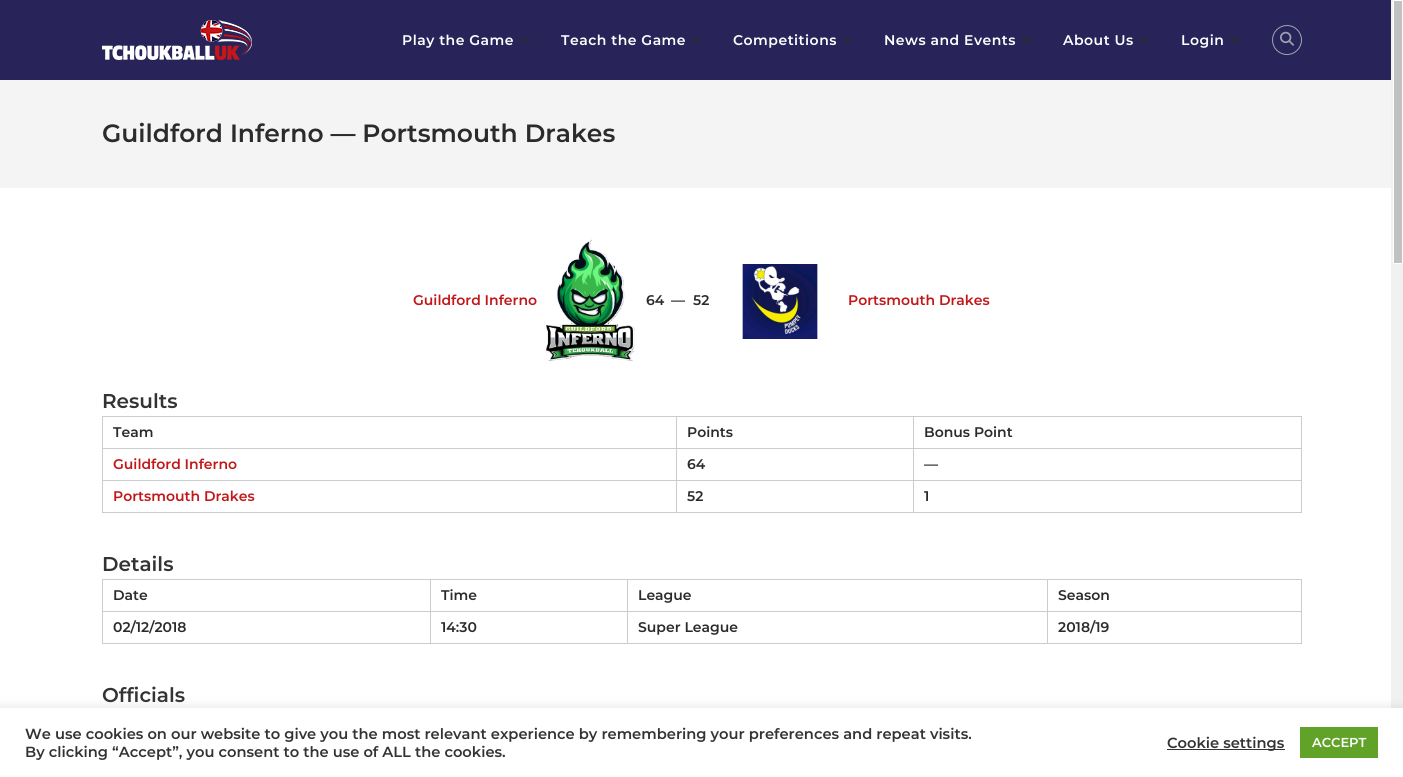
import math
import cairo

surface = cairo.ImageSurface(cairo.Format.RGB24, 1403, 777)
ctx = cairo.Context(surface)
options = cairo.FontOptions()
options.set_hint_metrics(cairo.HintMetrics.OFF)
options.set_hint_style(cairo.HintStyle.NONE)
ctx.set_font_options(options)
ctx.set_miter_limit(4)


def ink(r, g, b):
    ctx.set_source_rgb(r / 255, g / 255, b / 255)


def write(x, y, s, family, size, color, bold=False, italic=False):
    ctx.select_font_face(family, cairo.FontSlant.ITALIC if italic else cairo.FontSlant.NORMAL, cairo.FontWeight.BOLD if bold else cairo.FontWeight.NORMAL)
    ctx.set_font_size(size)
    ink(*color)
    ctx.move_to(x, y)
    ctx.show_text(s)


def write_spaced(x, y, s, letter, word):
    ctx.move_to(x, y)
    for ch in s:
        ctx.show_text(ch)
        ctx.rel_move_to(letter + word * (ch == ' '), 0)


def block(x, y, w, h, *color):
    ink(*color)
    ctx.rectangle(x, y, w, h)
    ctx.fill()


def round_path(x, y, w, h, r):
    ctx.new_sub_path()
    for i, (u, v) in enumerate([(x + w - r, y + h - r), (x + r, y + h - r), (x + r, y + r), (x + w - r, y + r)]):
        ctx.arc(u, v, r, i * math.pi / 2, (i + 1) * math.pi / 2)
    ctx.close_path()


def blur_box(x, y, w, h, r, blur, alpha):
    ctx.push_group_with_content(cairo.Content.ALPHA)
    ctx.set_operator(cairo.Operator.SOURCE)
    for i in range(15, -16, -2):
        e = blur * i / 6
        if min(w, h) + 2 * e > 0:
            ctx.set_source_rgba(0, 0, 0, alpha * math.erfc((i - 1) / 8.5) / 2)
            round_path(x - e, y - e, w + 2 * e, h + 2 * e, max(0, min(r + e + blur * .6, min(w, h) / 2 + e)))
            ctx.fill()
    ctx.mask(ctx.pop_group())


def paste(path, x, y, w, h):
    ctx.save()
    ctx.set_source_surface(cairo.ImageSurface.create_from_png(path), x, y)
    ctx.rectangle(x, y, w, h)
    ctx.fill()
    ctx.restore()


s1 = dict(family="Montserrat SemiBold", size=25, color=(43, 43, 43))
s2 = dict(family="Montserrat SemiBold", size=14, color=(194, 23, 25))
s3 = dict(family="Montserrat SemiBold", size=14, color=(43, 43, 43))
s4 = dict(family="Montserrat SemiBold", size=20, color=(51, 51, 51))
s5 = dict(family="Montserrat SemiBold", size=14.67, color=(51, 51, 51))
s6 = dict(family="Montserrat SemiBold", size=13, color=(255, 255, 255))

ink(255, 255, 255)
ctx.paint()
block(0, 0, 1391, 80, 40, 36, 90)
paste("pic1.png", 102, 20, 150, 40)
ctx.select_font_face("Montserrat SemiBold")
ctx.set_font_size(14)
ink(255, 255, 255)
write_spaced(402, 45, "Play the Game", 0.5, 0)
paste("pic2.png", 519, 37, 11, 7)
write_spaced(561, 45, "Teach the Game", 0.5, 0)
paste("pic2.png", 691, 37, 11, 7)
write_spaced(733, 45, "Competitions", 0.5, 0)
paste("pic2.png", 842, 37, 11, 7)
write_spaced(884, 45, "News and Events", 0.5, 0)
paste("pic2.png", 1022, 37, 11, 7)
write_spaced(1063, 45, "About Us", 0.5, 0)
paste("pic2.png", 1139, 37, 11, 7)
write_spaced(1181, 45, "Login", 0.5, 0)
paste("pic2.png", 1230, 37, 11, 7)
ctx.arc(1287, 40, 14.5, 0, 2 * math.pi)
ink(156, 166, 178)
ctx.set_line_width(1)
ctx.stroke()
paste("pic3.png", 1280, 31, 14, 15)
block(0, 80, 1391, 108, 244, 244, 244)
write(102, 142, "Guildford Inferno — Portsmouth Drakes", **s1)
write(413, 305, "Guildford Inferno", **s2)
paste("pic4.png", 545, 239, 90, 123)
write(646, 305, "64", **s3)
write(671, 305, "—", **s3)
write(693, 305, "52", **s3)
paste("pic5.png", 742, 264, 76, 75)
write(848, 305, "Portsmouth Drakes", **s2)
write(102, 408, "Results", **s4)
block(913, 416, 389, 1, 204, 204, 204)
block(913, 448, 389, 1, 204, 204, 204)
block(913, 480, 389, 1, 204, 204, 204)
block(1301, 480, 1, 33, 204, 204, 204)
block(913, 512, 389, 1, 204, 204, 204)
block(913, 480, 1, 33, 204, 204, 204)
block(676, 480, 238, 1, 204, 204, 204)
block(913, 448, 1, 33, 204, 204, 204)
block(676, 448, 238, 1, 204, 204, 204)
block(913, 416, 1, 33, 204, 204, 204)
block(676, 416, 238, 1, 204, 204, 204)
block(676, 512, 238, 1, 204, 204, 204)
block(676, 480, 1, 33, 204, 204, 204)
block(102, 480, 575, 1, 204, 204, 204)
block(676, 448, 1, 33, 204, 204, 204)
block(102, 448, 575, 1, 204, 204, 204)
block(676, 416, 1, 33, 204, 204, 204)
block(102, 416, 575, 1, 204, 204, 204)
block(102, 512, 575, 1, 204, 204, 204)
block(102, 480, 1, 33, 204, 204, 204)
block(102, 448, 1, 33, 204, 204, 204)
block(102, 416, 1, 33, 204, 204, 204)
write(113, 437, "Team", **s3)
write(687, 437, "Points", **s3)
block(1301, 448, 1, 33, 204, 204, 204)
block(1301, 416, 1, 33, 204, 204, 204)
write(924, 437, "Bonus Point", **s3)
write(113, 469, "Guildford Inferno", **s2)
write(687, 469, "64", **s3)
write(924, 469, "—", **s3)
write(113, 501, "Portsmouth Drakes", **s2)
write(687, 501, "52", **s3)
write(924, 501, "1", **s3)
write(102, 571, "Details", **s4)
block(1047, 579, 255, 1, 204, 204, 204)
block(1047, 611, 255, 1, 204, 204, 204)
block(1301, 611, 1, 33, 204, 204, 204)
block(1047, 643, 255, 1, 204, 204, 204)
block(1047, 611, 1, 33, 204, 204, 204)
block(627, 611, 421, 1, 204, 204, 204)
block(1047, 579, 1, 33, 204, 204, 204)
block(627, 579, 421, 1, 204, 204, 204)
block(627, 643, 421, 1, 204, 204, 204)
block(627, 611, 1, 33, 204, 204, 204)
block(430, 611, 198, 1, 204, 204, 204)
block(627, 579, 1, 33, 204, 204, 204)
block(430, 579, 198, 1, 204, 204, 204)
block(430, 643, 198, 1, 204, 204, 204)
block(430, 611, 1, 33, 204, 204, 204)
block(102, 611, 329, 1, 204, 204, 204)
block(430, 579, 1, 33, 204, 204, 204)
block(102, 579, 329, 1, 204, 204, 204)
block(102, 643, 329, 1, 204, 204, 204)
block(102, 611, 1, 33, 204, 204, 204)
block(102, 579, 1, 33, 204, 204, 204)
write(113, 600, "Date", **s3)
write(441, 600, "Time", **s3)
write(638, 600, "League", **s3)
block(1301, 579, 1, 33, 204, 204, 204)
write(1058, 600, "Season", **s3)
write(113, 632, "02/12/2018", **s3)
write(441, 632, "14:30", **s3)
write(638, 632, "Super League", **s3)
write(1058, 632, "2018/19", **s3)
write(102, 702, "Officials", **s4)
block(1391, 0, 12, 708, 241, 241, 241)
ink(193, 193, 193)
ctx.rectangle(1393.5, 0.5, 9, 263)
ctx.fill_preserve()
ink(255, 255, 255)
ctx.stroke()
ink(172, 171, 171)
blur_box(0, 707, 1403, 69, 0, 5, 0.3)
block(0, 708, 1403, 69, 255, 255, 255)
write(25, 739, "We use cookies on our website to give you the most relevant experience by remembering your preferences and repeat visits.", **s5)
write(25, 757, "By clicking “Accept”, you consent to the use of ALL the cookies.", **s5)
block(1167, 749, 118, 1, 51, 51, 51)
write(1167, 748, "Cookie settings", **s5)
block(1300, 727, 78, 31, 97, 162, 41)
write(1312, 747, "ACCEPT", **s6)
surface.write_to_png("screenshot.png")
